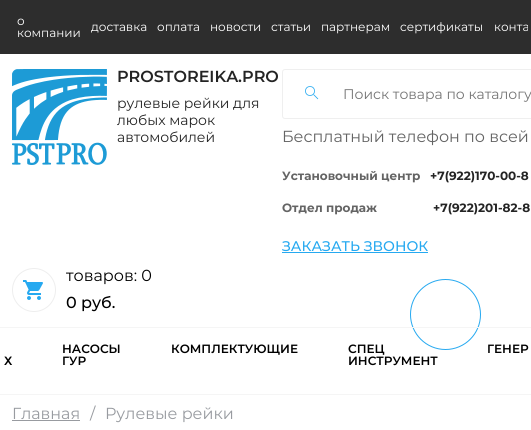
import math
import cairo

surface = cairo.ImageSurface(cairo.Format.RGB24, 531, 430)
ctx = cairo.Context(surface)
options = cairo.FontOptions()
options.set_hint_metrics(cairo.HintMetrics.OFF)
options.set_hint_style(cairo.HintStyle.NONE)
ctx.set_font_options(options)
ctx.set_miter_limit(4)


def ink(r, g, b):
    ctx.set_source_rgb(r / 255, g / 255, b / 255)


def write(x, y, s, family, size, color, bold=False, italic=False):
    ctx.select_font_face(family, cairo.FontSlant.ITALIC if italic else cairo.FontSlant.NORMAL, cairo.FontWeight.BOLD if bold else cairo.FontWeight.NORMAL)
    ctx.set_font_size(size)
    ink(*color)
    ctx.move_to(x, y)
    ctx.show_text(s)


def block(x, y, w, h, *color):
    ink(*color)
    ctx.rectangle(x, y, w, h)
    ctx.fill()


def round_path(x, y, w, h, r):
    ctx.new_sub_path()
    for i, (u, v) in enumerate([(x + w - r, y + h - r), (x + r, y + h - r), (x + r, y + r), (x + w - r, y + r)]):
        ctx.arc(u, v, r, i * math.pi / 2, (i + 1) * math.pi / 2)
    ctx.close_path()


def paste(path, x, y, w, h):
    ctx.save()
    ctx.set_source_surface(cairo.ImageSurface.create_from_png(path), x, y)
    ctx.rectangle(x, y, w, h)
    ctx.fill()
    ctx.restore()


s1 = dict(family="Montserrat", size=12, color=(255, 255, 255))
s2 = dict(family="Montserrat SemiBold", size=16, color=(36, 36, 36))
s3 = dict(family="Montserrat", size=14, color=(36, 36, 36))
s4 = dict(family="Montserrat", size=14, color=(117, 117, 117))
s5 = dict(family="Montserrat", size=16, color=(100, 100, 100))
s6 = dict(family="Montserrat", size=12, color=(100, 100, 100), bold=True)
s7 = dict(family="Montserrat", size=12, color=(36, 36, 36), bold=True)
s8 = dict(family="Montserrat Medium", size=14, color=(38, 169, 240))
s9 = dict(family="Montserrat", size=16, color=(0, 0, 0))
s10 = dict(family="Montserrat Medium", size=16, color=(0, 0, 0))
s11 = dict(family="Montserrat SemiBold", size=12, color=(0, 0, 0))
s12 = dict(family="Montserrat", size=16, color=(152, 155, 160))

ink(255, 255, 255)
ctx.paint()
block(0, 0, 531, 54, 45, 45, 45)
write(17, 25, "о", **s1)
write(17, 37, "компании", **s1)
write(91, 31, "доставка", **s1)
write(157, 31, "оплата", **s1)
write(210, 31, "новости", **s1)
write(271, 31, "статьи", **s1)
write(321, 31, "партнерам", **s1)
write(400, 31, "cертификаты", **s1)
write(494, 31, "конта", **s1)
paste("pic1.png", 12, 69, 95, 96)
write(117, 82, "PROSTOREIKA.PRO", **s2)
write(117, 108, "рулевые рейки для", **s3)
write(117, 125, "любых марок", **s3)
write(117, 142, "автомобилей", **s3)
round_path(282.5, 69.5, 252, 49, 2.5)
ink(239, 239, 239)
ctx.set_line_width(1)
ctx.stroke()
ctx.arc(310, 91, 4.5, 0, 2 * math.pi)
ink(38, 169, 240)
ctx.set_line_width(0.8)
ctx.stroke()
ctx.new_path()
ctx.move_to(313.5, 94.5)
ctx.line_to(318, 99)
ctx.set_line_join(cairo.LineJoin.ROUND)
ctx.stroke()
write(343, 99, "Поиск товара по каталогу", **s4)
write(282, 142, "Бесплатный телефон по всей", **s5)
write(282, 180, "Установочный центр", **s6)
write(430, 180, "+7(922)170-00-8", **s7)
write(282, 212, "Отдел продаж", **s6)
write(433, 212, "+7(922)201-82-8", **s7)
write(282, 251, "ЗАКАЗАТЬ ЗВОНОК", **s8)
block(282, 252, 146, 1, 38, 169, 240)
ctx.new_path()
ctx.arc(34, 290, 21.5, 0, 2 * math.pi)
ink(238, 238, 238)
ctx.set_line_width(1)
ctx.set_line_join(cairo.LineJoin.MITER)
ctx.stroke()
paste("pic2.png", 23, 280, 20, 20)
write(66, 281, "товаров: 0", **s9)
write(66, 308, "0 руб.", **s10)
ctx.new_path()
ctx.arc(445.5, 314.5, 35, 0, 2 * math.pi)
ink(38, 169, 240)
ctx.stroke()
block(0, 327, 531, 1, 245, 245, 245)
block(0, 394, 531, 1, 245, 245, 245)
write(62, 353, "НАСОСЫ", **s11)
write(62, 365, "ГУР", **s11)
write(171, 353, "КОМПЛЕКТУЮЩИЕ", **s11)
write(348, 353, "СПЕЦ", **s11)
write(348, 365, "ИНСТРУМЕНТ", **s11)
write(487, 353, "ГЕНЕР", **s11)
write(4, 365, "Х", **s11)
write(12, 419, "Главная", **s12)
block(12, 420, 68, 1, 152, 155, 160)
write(90, 419, "/", **s12)
write(105, 419, "Рулевые рейки", **s12)
surface.write_to_png("screenshot.png")
